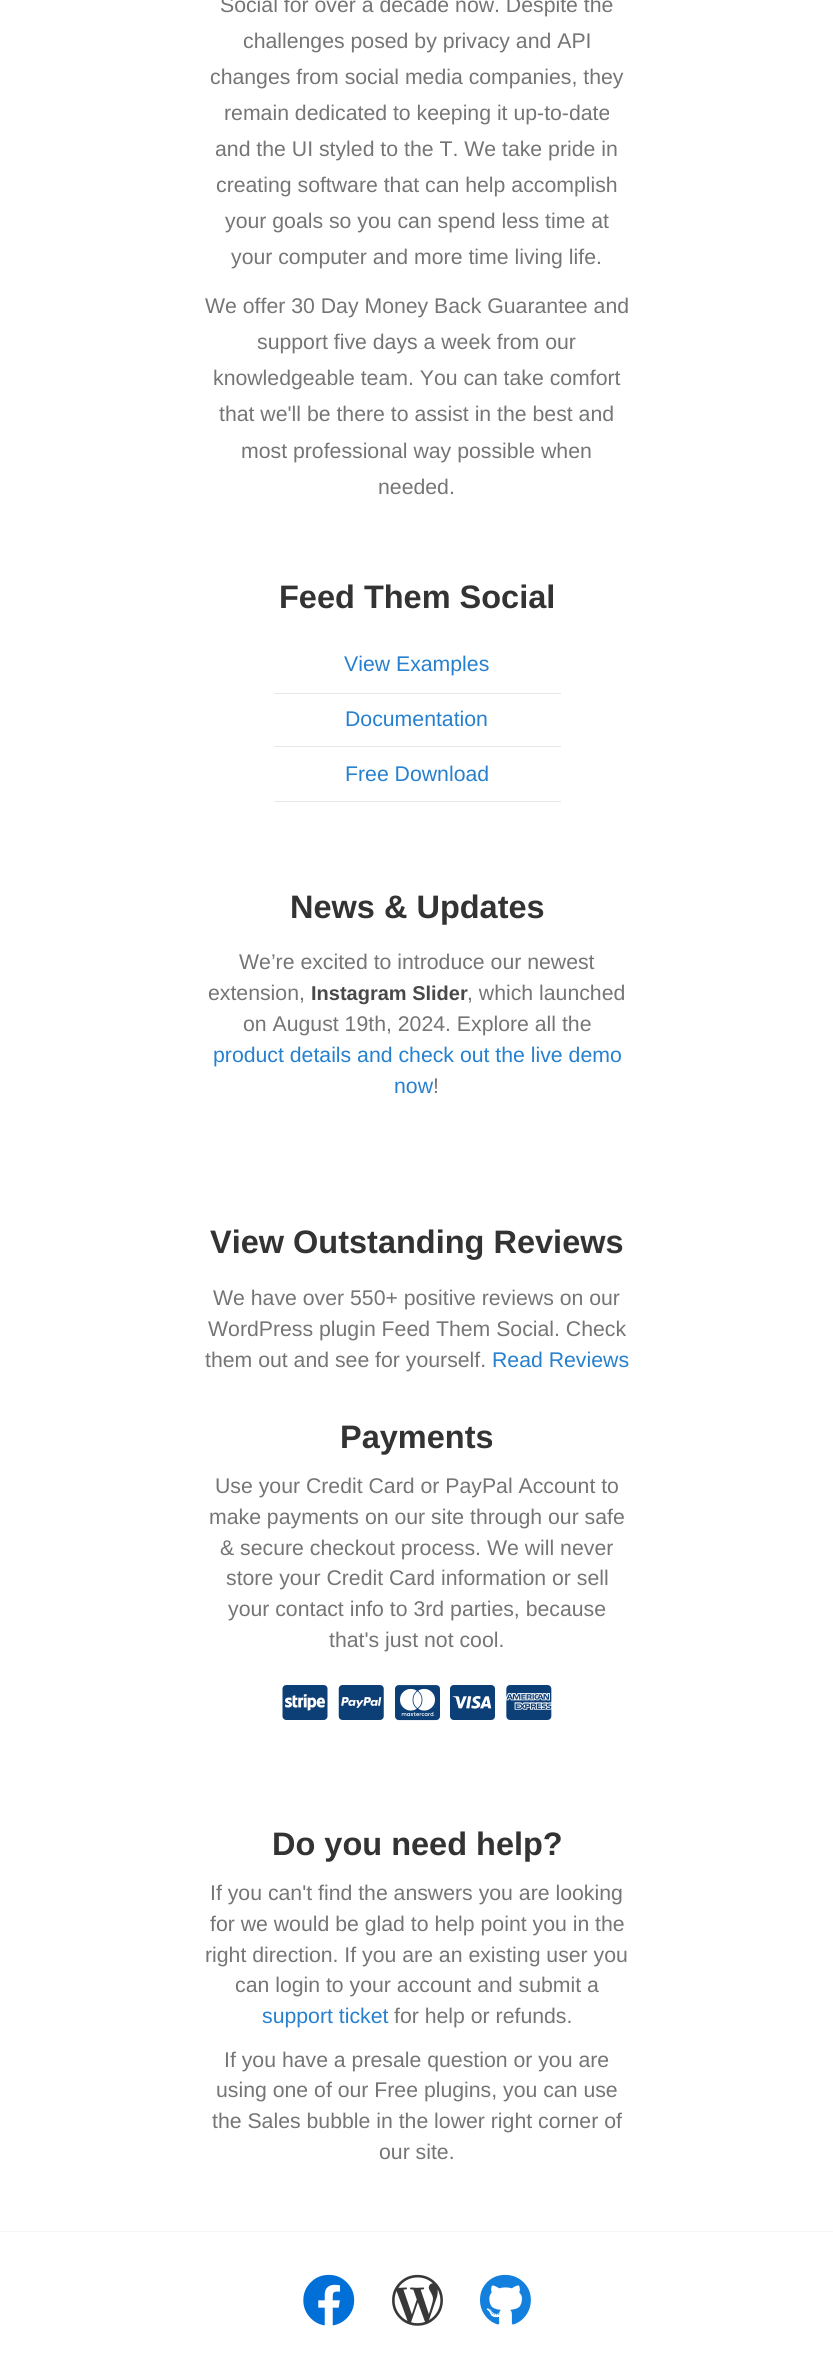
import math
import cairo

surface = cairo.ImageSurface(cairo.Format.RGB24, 833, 2362)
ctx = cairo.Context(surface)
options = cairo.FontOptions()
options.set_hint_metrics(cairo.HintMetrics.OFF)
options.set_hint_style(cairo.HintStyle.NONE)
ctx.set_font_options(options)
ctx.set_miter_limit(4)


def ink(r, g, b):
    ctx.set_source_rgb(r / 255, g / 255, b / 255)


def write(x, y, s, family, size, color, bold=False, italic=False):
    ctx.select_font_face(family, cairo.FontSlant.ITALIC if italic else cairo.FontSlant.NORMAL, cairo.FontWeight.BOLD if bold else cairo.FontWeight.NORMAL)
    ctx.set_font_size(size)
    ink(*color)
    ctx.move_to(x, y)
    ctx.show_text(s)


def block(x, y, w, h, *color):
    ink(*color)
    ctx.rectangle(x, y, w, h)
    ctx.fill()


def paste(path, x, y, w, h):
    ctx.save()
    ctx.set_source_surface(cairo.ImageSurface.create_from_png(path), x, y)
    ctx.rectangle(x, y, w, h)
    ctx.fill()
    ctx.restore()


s1 = dict(family="Liberation Sans", size=21.25, color=(117, 117, 117))
s2 = dict(family="Liberation Sans", size=32.5, color=(51, 51, 51), bold=True)
s3 = dict(family="Liberation Sans", size=21.25, color=(38, 128, 206))
s4 = dict(family="Liberation Sans", size=20, color=(73, 73, 73), bold=True)

ink(255, 255, 255)
ctx.paint()
write(220, 12, "Social for over a decade now. Despite the", **s1)
write(243, 48, "challenges posed by privacy and API", **s1)
write(210, 84, "changes from social media companies, they", **s1)
write(224, 120, "remain dedicated to keeping it up-to-date", **s1)
write(215, 156, "and the UI styled to the T. We take pride in", **s1)
write(216, 192, "creating software that can help accomplish", **s1)
write(225, 228, "your goals so you can spend less time at", **s1)
write(231, 264, "your computer and more time living life.", **s1)
write(205, 313, "We offer 30 Day Money Back Guarantee and", **s1)
write(257, 349, "support five days a week from our", **s1)
write(213, 385, "knowledgeable team. You can take comfort", **s1)
write(219, 421, "that we'll be there to assist in the best and", **s1)
write(241, 458, "most professional way possible when", **s1)
write(378, 494, "needed.", **s1)
write(279, 608, "Feed Them Social", **s2)
block(274, 693, 287, 1, 231, 231, 231)
write(344, 671, "View Examples", **s3)
block(274, 746, 287, 1, 231, 231, 231)
write(345, 726, "Documentation", **s3)
block(274, 801, 287, 1, 231, 231, 231)
write(345, 781, "Free Download", **s3)
write(290, 918, "News & Updates", **s2)
write(239, 969, "We’re excited to introduce our newest", **s1)
write(208, 1000, "extension,", **s1)
write(311, 1000, "Instagram Slider", **s4)
write(467, 1000, ", which launched", **s1)
write(243, 1031, "on August 19th, 2024. Explore all the", **s1)
write(213, 1062, "product details and check out the live demo", **s3)
write(394, 1093, "now", **s3)
write(433, 1093, "!", **s1)
write(210, 1253, "View Outstanding Reviews", **s2)
write(213, 1305, "We have over 550+ positive reviews on our", **s1)
write(208, 1336, "WordPress plugin Feed Them Social. Check", **s1)
write(205, 1367, "them out and see for yourself.", **s1)
write(492, 1367, "Read Reviews", **s3)
write(340, 1448, "Payments", **s2)
write(215, 1493, "Use your Credit Card or PayPal Account to", **s1)
write(209, 1524, "make payments on our site through our safe", **s1)
write(220, 1555, "& secure checkout process. We will never", **s1)
write(226, 1585, "store your Credit Card information or sell", **s1)
write(228, 1616, "your contact info to 3rd parties, because", **s1)
write(329, 1647, "that's just not cool.", **s1)
paste("pic1.png", 282, 1685, 46, 35)
paste("pic2.png", 338, 1685, 46, 35)
paste("pic3.png", 395, 1685, 45, 36)
paste("pic4.png", 450, 1685, 45, 35)
paste("pic5.png", 506, 1685, 46, 35)
write(272, 1855, "Do you need help?", **s2)
write(210, 1900, "If you can't find the answers you are looking", **s1)
write(210, 1931, "for we would be glad to help point you in the", **s1)
write(205, 1962, "right direction. If you are an existing user you", **s1)
write(235, 1992, "can login to your account and submit a", **s1)
write(262, 2023, "support ticket", **s3)
write(394, 2023, "for help or refunds.", **s1)
write(224, 2067, "If you have a presale question or you are", **s1)
write(216, 2097, "using one of our Free plugins, you can use", **s1)
write(212, 2128, "the Sales bubble in the lower right corner of", **s1)
write(379, 2159, "our site.", **s1)
block(0, 2231, 833, 1, 245, 245, 247)
paste("pic6.png", 303, 2274, 52, 52)
paste("pic7.png", 392, 2274, 51, 52)
paste("pic8.png", 480, 2274, 51, 51)
surface.write_to_png("screenshot.png")
